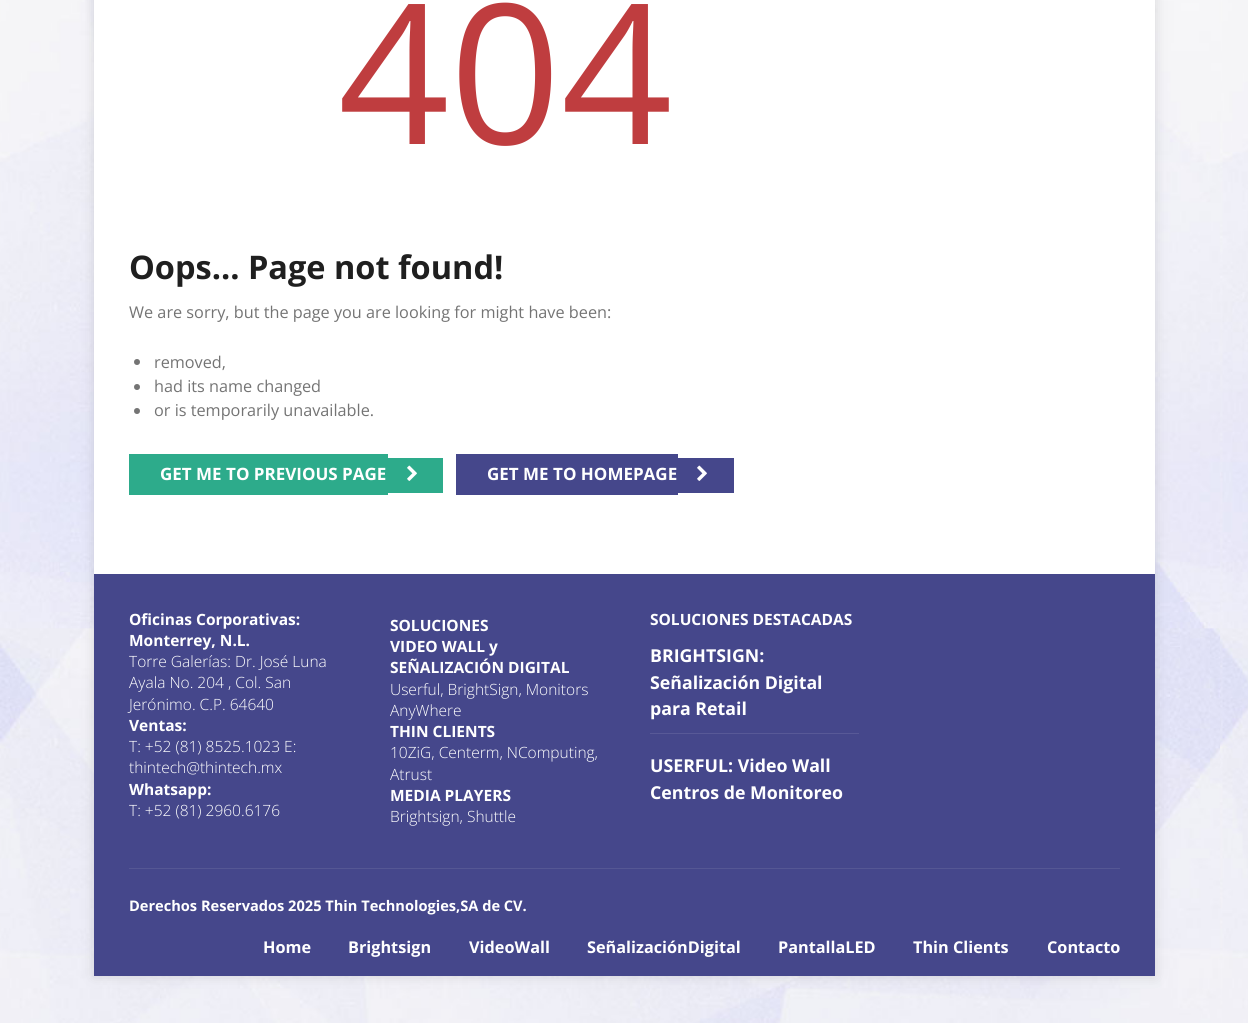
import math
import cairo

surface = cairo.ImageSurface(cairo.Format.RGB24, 1248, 1023)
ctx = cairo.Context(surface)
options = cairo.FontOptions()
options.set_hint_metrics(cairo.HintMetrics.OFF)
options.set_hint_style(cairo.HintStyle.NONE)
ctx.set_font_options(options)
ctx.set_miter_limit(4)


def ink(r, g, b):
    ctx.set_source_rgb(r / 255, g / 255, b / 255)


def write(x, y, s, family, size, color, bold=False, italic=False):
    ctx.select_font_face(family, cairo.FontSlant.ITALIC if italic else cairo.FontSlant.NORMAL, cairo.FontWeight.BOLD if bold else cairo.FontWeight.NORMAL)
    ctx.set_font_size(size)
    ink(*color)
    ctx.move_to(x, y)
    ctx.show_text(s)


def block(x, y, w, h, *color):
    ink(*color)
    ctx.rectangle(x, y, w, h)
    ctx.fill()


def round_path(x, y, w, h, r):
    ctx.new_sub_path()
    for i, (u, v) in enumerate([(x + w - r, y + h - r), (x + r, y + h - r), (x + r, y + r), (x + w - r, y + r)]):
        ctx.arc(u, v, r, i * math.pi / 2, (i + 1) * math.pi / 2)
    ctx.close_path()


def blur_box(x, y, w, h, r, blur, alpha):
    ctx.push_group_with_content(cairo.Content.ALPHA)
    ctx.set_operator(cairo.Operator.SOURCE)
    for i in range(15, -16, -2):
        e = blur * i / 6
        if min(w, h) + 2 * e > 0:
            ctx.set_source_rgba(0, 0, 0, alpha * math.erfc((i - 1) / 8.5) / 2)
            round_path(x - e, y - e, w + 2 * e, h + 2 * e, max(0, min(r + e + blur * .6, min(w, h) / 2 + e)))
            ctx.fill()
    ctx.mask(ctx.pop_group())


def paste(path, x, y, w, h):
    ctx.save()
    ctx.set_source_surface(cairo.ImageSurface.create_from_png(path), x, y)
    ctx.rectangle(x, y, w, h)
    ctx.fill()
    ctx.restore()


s1 = dict(family="Open Sans", size=195, color=(191, 61, 63))
s2 = dict(family="Open Sans", size=32.5, color=(31, 31, 31), bold=True)
s3 = dict(family="Open Sans", size=16.25, color=(116, 116, 116))
s4 = dict(family="Open Sans", size=17, color=(255, 255, 255), bold=True)
s5 = dict(family="Open Sans", size=15.5, color=(255, 255, 255), bold=True)
s6 = dict(family="Open Sans Light", size=15.5, color=(255, 255, 255))
s7 = dict(family="Open Sans", size=17.75, color=(255, 255, 255), bold=True)
s8 = dict(family="Open Sans", size=14.6, color=(255, 255, 255), bold=True)
s9 = dict(family="Open Sans", size=16.25, color=(255, 255, 255), bold=True)

ink(255, 255, 255)
ctx.paint()
paste("pic1.png", 0, 0, 1248, 1023)
ink(87, 87, 87)
blur_box(94, -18, 1061, 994, 0, 6, 0.2)
block(94, 0, 1061, 574, 255, 255, 255)
write(338, 144, "404", **s1)
write(129, 279, "Oops... Page not found!", **s2)
write(129, 318, "We are sorry, but the page you are looking for might have been:", **s3)
ctx.new_path()
ctx.arc(137, 362, 3, 0, 2 * math.pi)
ctx.fill()
write(154, 368, "removed,", **s3)
ctx.new_path()
ctx.arc(137, 387, 3, 0, 2 * math.pi)
ctx.fill()
write(154, 392, "had its name changed", **s3)
ctx.new_path()
ctx.arc(137, 411, 3, 0, 2 * math.pi)
ctx.fill()
write(154, 416, "or is temporarily unavailable.", **s3)
block(129, 454, 259, 41, 45, 171, 139)
write(160, 480, "GET ME TO PREVIOUS PAGE", **s4)
block(388, 458, 55, 35, 45, 171, 139)
paste("pic2.png", 407, 465, 10, 16)
block(456, 454, 222, 41, 69, 71, 139)
write(487, 480, "GET ME TO HOMEPAGE", **s4)
block(678, 458, 56, 35, 69, 71, 139)
paste("pic3.png", 697, 465, 10, 16)
block(94, 574, 1061, 402, 69, 71, 139)
write(129, 625, "Oficinas Corporativas:", **s5)
write(129, 646, "Monterrey, N.L.", **s5)
write(129, 667, "Torre Galerías: Dr. José Luna", **s6)
write(129, 688, "Ayala No. 204 , Col. San", **s6)
write(129, 710, "Jerónimo. C.P. 64640", **s6)
write(129, 731, "Ventas:", **s5)
write(129, 752, "T: +52 (81) 8525.1023 E:", **s6)
write(129, 773, "thintech@thintech.mx", **s6)
write(129, 795, "Whatsapp:", **s5)
write(129, 816, "T: +52 (81) 2960.6176", **s6)
write(390, 631, "SOLUCIONES", **s5)
write(390, 652, "VIDEO WALL y", **s5)
write(390, 673, "SEÑALIZACIÓN DIGITAL", **s5)
write(390, 695, "Userful, BrightSign, Monitors", **s6)
write(390, 716, "AnyWhere", **s6)
write(390, 737, "THIN CLIENTS", **s5)
write(390, 758, "10ZiG, Centerm, NComputing,", **s6)
write(390, 780, "Atrust", **s6)
write(390, 801, "MEDIA PLAYERS", **s5)
write(390, 822, "Brightsign, Shuttle", **s6)
write(650, 625, "SOLUCIONES DESTACADAS", **s5)
block(650, 733, 209, 1, 88, 89, 151)
write(650, 662, "BRIGHTSIGN:", **s7)
write(650, 689, "Señalización Digital", **s7)
write(650, 715, "para Retail", **s7)
write(650, 772, "USERFUL: Video Wall", **s7)
write(650, 799, "Centros de Monitoreo", **s7)
block(129, 868, 991, 1, 85, 87, 148)
write(129, 911, "Derechos Reservados 2025 Thin Technologies,SA de CV.", **s8)
write(263, 953, "Home", **s9)
write(348, 953, "Brightsign", **s9)
write(469, 953, "VideoWall", **s9)
write(587, 953, "SeñalizaciónDigital", **s9)
write(778, 953, "PantallaLED", **s9)
write(913, 953, "Thin Clients", **s9)
write(1047, 953, "Contacto", **s9)
surface.write_to_png("screenshot.png")
